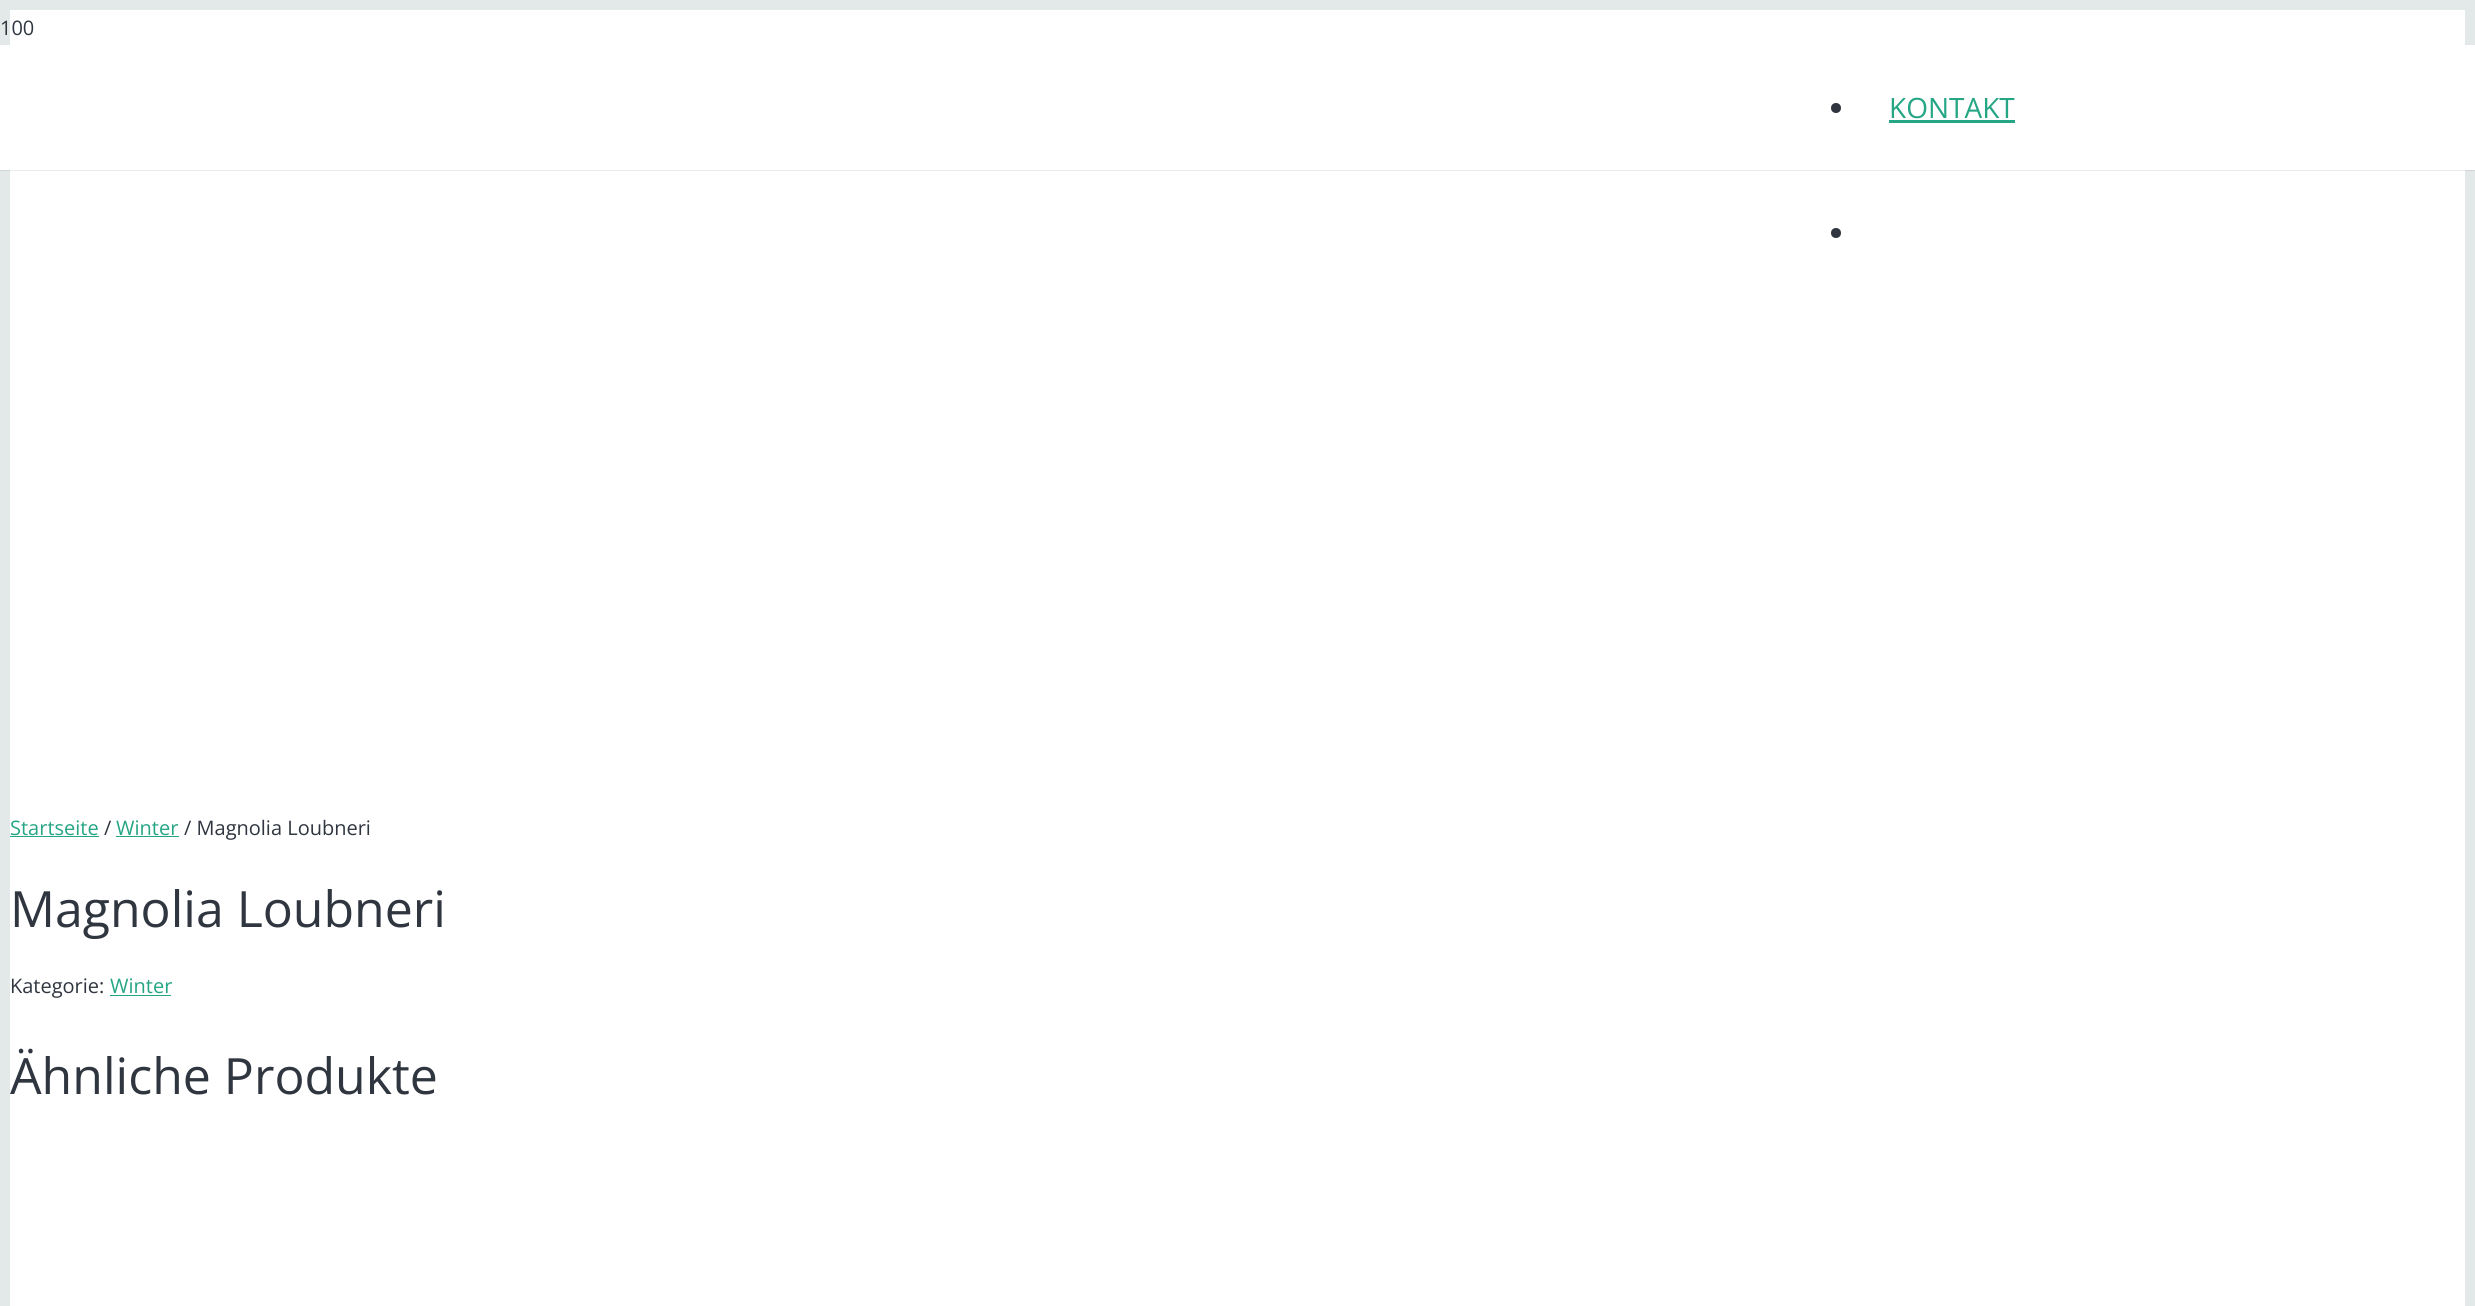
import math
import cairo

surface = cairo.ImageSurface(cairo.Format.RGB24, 2475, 1306)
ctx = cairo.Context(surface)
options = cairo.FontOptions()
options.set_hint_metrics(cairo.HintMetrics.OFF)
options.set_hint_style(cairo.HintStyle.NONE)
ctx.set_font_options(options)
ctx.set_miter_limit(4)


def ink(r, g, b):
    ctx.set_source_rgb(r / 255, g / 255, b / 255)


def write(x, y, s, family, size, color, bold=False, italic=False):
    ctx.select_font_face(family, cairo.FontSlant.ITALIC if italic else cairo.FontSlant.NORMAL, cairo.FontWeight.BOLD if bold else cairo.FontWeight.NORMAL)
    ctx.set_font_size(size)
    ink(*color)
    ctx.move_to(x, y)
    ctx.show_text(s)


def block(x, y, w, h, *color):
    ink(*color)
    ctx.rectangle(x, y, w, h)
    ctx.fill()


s1 = dict(family="Open Sans", size=20, color=(48, 54, 64))
s2 = dict(family="Open Sans", size=28, color=(36, 165, 132))
s3 = dict(family="Open Sans", size=20, color=(36, 165, 132))
s4 = dict(family="Open Sans", size=50, color=(48, 54, 64))

ink(227, 232, 232)
ctx.paint()
block(0, 170, 2475, 1, 209, 213, 213)
block(10, 10, 2455, 1296, 255, 255, 255)
block(10, 170, 2455, 1, 235, 235, 235)
write(0, 35, "100", **s1)
block(0, 45, 2475, 125, 255, 255, 255)
ink(48, 54, 64)
ctx.new_path()
ctx.arc(1836, 108, 5, 0, 2 * math.pi)
ctx.fill()
write(1889, 118, "KONTAKT", **s2)
block(1889, 120, 126, 3, 36, 165, 132)
ink(48, 54, 64)
ctx.new_path()
ctx.arc(1836, 233, 5, 0, 2 * math.pi)
ctx.fill()
write(10, 835, "Startseite", **s3)
block(10, 836, 89, 1, 36, 165, 132)
write(104, 835, "/", **s1)
write(116, 835, "Winter", **s3)
block(116, 836, 63, 1, 36, 165, 132)
write(184, 835, "/ Magnolia Loubneri", **s1)
write(10, 927, "Magnolia Loubneri", **s4)
write(10, 993, "Kategorie:", **s1)
write(110, 993, "Winter", **s3)
block(110, 995, 61, 1, 36, 165, 132)
write(10, 1094, "Ähnliche Produkte", **s4)
surface.write_to_png("screenshot.png")
